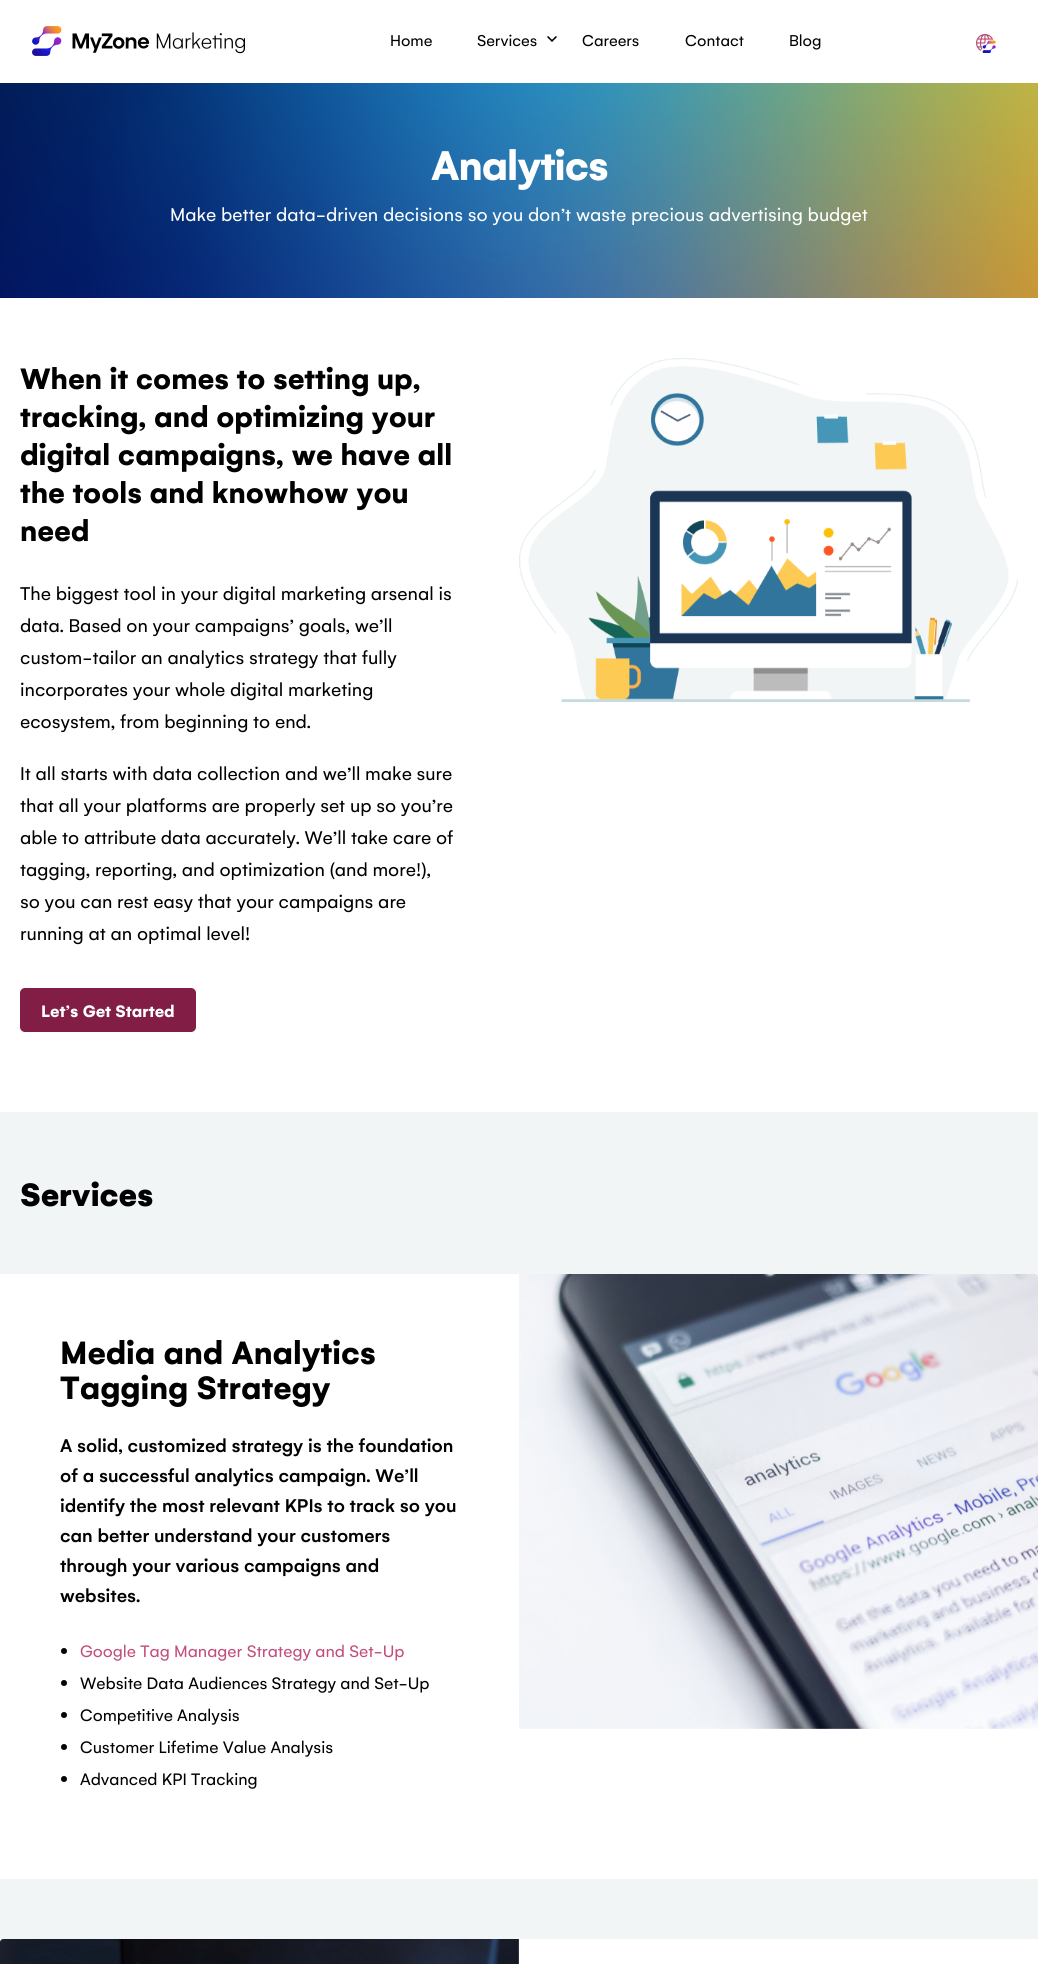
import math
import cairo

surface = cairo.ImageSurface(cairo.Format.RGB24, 1038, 1964)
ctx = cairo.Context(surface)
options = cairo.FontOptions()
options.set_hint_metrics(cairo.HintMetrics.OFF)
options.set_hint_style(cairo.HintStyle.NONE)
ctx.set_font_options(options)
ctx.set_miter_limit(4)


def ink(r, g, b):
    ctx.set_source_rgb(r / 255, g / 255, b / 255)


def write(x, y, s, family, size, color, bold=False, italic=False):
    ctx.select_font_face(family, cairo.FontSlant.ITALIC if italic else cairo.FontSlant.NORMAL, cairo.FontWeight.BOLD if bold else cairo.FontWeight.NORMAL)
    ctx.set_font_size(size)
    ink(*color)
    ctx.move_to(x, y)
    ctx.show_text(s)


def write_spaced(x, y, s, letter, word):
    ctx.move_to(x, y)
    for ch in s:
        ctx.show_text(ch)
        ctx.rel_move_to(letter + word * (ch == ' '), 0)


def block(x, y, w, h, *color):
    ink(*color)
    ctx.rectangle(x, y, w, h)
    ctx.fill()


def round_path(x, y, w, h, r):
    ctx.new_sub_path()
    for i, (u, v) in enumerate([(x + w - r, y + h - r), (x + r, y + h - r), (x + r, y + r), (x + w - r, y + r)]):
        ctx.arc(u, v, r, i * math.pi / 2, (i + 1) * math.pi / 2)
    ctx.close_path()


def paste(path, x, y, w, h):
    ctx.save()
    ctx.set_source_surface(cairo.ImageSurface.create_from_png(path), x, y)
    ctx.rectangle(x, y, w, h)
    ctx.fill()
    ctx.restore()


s1 = dict(family="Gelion", size=17, color=(0, 0, 0))
s2 = dict(family="Gelion", size=20, color=(255, 255, 255))
s3 = dict(family="Gelion", size=32, color=(0, 0, 0), bold=True)
s4 = dict(family="Gelion", size=20, color=(0, 0, 0))
s5 = dict(family="Gelion", size=18, color=(255, 255, 255), bold=True)
s6 = dict(family="Gelion Black", size=35, color=(0, 0, 0))
s7 = dict(family="Gelion", size=35, color=(0, 0, 0), bold=True)
s8 = dict(family="Gelion Medium", size=20, color=(0, 0, 0))
s9 = dict(family="Gelion", size=18, color=(194, 78, 124))
s10 = dict(family="Gelion", size=18, color=(0, 0, 0))

ink(255, 255, 255)
ctx.paint()
paste("pic1.png", 32, 26, 213, 30)
write(390, 46, "Home", **s1)
write(477, 46, "Services", **s1)
paste("pic2.png", 547, 36, 10, 6)
write(582, 46, "Careers", **s1)
write(685, 46, "Contact", **s1)
write(789, 46, "Blog", **s1)
paste("pic3.png", 976, 34, 20, 19)
paste("pic4.png", 0, 83, 1038, 215)
ctx.select_font_face("Gelion", cairo.FontSlant.NORMAL, cairo.FontWeight.BOLD)
ctx.set_font_size(45)
ink(255, 255, 255)
write_spaced(431, 180, "Analytics", -1, 0)
write(170, 221, "Make better data-driven decisions so you don’t waste precious advertising budget", **s2)
write(20, 389, "When it comes to setting up,", **s3)
write(20, 427, "tracking, and optimizing your", **s3)
write(20, 465, "digital campaigns, we have all", **s3)
write(20, 503, "the tools and knowhow you", **s3)
write(20, 541, "need", **s3)
write(20, 600, "The biggest tool in your digital marketing arsenal is", **s4)
write(20, 632, "data. Based on your campaigns’ goals, we’ll", **s4)
write(20, 664, "custom-tailor an analytics strategy that fully", **s4)
write(20, 696, "incorporates your whole digital marketing", **s4)
write(20, 728, "ecosystem, from beginning to end.", **s4)
write(20, 780, "It all starts with data collection and we’ll make sure", **s4)
write(20, 812, "that all your platforms are properly set up so you’re", **s4)
write(20, 844, "able to attribute data accurately. We’ll take care of", **s4)
write(20, 876, "tagging, reporting, and optimization (and more!),", **s4)
write(20, 908, "so you can rest easy that your campaigns are", **s4)
write(20, 940, "running at an optimal level!", **s4)
ink(130, 30, 70)
round_path(20, 988, 176, 44, 5)
ctx.fill()
write(41, 1017, "Let’s Get Started", **s5)
paste("pic5.png", 519, 358, 499, 344)
block(0, 1112, 1038, 827, 242, 245, 246)
write(20, 1206, "Services", **s6)
block(0, 1274, 1038, 605, 255, 255, 255)
write(60, 1364, "Media and Analytics", **s7)
write(60, 1399, "Tagging Strategy", **s7)
write(60, 1452, "A solid, customized strategy is the foundation", **s8)
write(60, 1482, "of a successful analytics campaign. We’ll", **s8)
write(60, 1512, "identify the most relevant KPIs to track so you", **s8)
write(60, 1542, "can better understand your customers", **s8)
write(60, 1572, "through your various campaigns and", **s8)
write(60, 1602, "websites.", **s8)
ink(4, 4, 4)
ctx.new_path()
ctx.arc(64, 1651, 3, 0, 2 * math.pi)
ctx.fill()
write(80, 1657, "Google Tag Manager Strategy and Set-Up", **s9)
ink(4, 4, 4)
ctx.new_path()
ctx.arc(64, 1683, 3, 0, 2 * math.pi)
ctx.fill()
write(80, 1689, "Website Data Audiences Strategy and Set-Up", **s10)
ink(4, 4, 4)
ctx.new_path()
ctx.arc(64, 1715, 3, 0, 2 * math.pi)
ctx.fill()
write(80, 1721, "Competitive Analysis", **s10)
ink(4, 4, 4)
ctx.new_path()
ctx.arc(64, 1747, 3, 0, 2 * math.pi)
ctx.fill()
write(80, 1753, "Customer Lifetime Value Analysis", **s10)
ink(4, 4, 4)
ctx.new_path()
ctx.arc(64, 1779, 3, 0, 2 * math.pi)
ctx.fill()
write(80, 1785, "Advanced KPI Tracking", **s10)
paste("pic6.png", 519, 1274, 519, 455)
paste("pic7.png", 0, 1939, 519, 25)
surface.write_to_png("screenshot.png")
